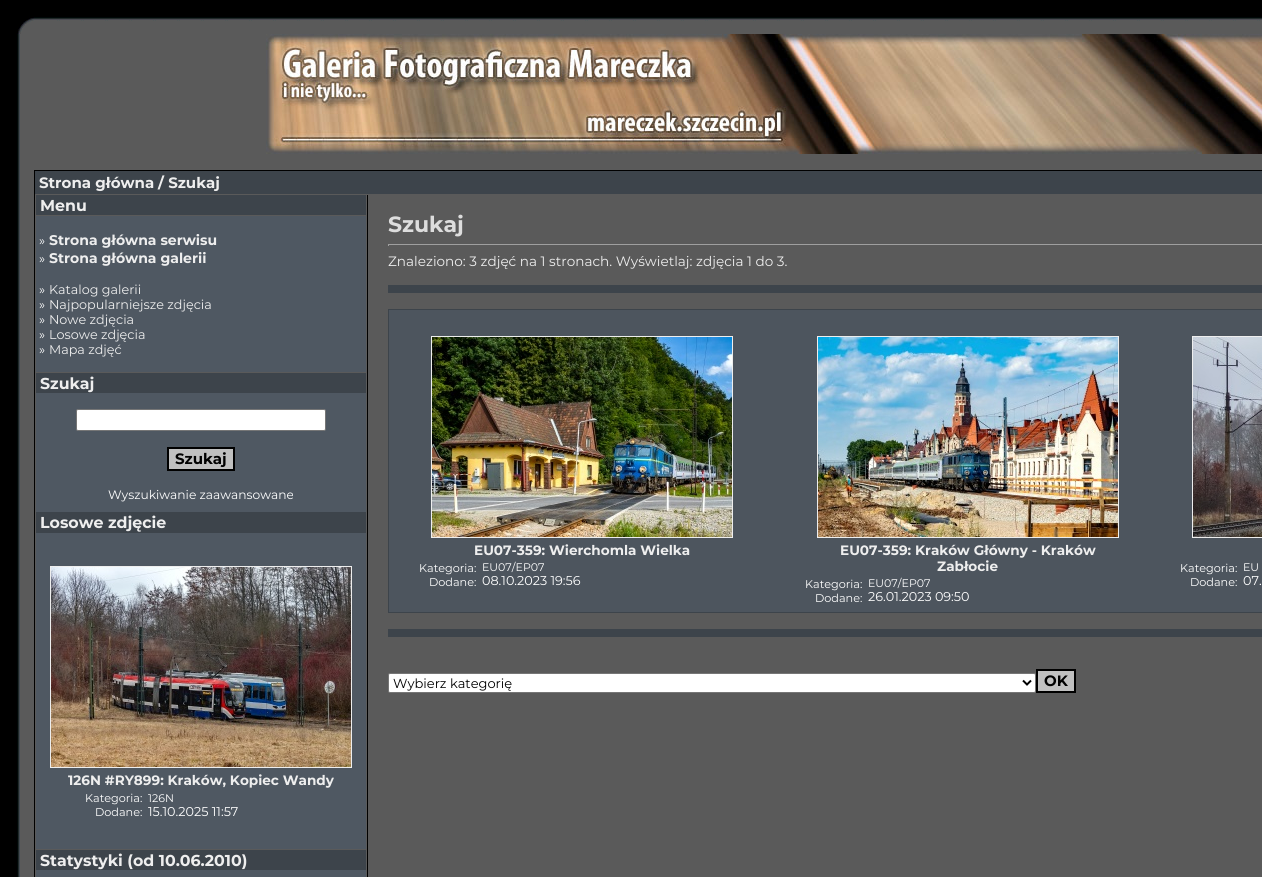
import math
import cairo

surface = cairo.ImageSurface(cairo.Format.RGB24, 1262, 877)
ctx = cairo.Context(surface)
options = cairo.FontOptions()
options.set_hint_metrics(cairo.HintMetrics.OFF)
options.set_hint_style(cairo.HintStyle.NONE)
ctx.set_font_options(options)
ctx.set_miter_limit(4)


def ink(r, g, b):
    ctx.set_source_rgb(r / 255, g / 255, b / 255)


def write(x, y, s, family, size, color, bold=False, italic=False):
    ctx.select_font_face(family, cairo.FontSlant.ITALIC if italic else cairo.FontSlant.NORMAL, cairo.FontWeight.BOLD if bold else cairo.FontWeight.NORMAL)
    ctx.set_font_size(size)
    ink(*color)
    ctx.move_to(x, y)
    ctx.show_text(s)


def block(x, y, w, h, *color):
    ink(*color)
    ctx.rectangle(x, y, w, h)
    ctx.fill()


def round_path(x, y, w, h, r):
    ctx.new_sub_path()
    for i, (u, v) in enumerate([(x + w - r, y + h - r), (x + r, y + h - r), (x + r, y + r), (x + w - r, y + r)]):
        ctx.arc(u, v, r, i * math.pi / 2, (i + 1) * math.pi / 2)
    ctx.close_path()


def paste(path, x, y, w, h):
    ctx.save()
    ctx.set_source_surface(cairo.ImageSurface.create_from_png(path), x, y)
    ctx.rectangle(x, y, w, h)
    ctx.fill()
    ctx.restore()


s1 = dict(family="Montserrat", size=15, color=(238, 238, 238), bold=True)
s2 = dict(family="Montserrat", size=15.8, color=(238, 238, 238), bold=True)
s3 = dict(family="Montserrat", size=12.75, color=(255, 255, 255))
s4 = dict(family="Montserrat", size=14, color=(238, 238, 238), bold=True)
s5 = dict(family="Montserrat", size=12.75, color=(238, 238, 238))
s6 = dict(family="Montserrat", size=15, color=(0, 0, 0), bold=True)
s7 = dict(family="Montserrat", size=12.25, color=(255, 255, 255))
s8 = dict(family="Montserrat", size=13.6, color=(238, 238, 238), bold=True)
s9 = dict(family="Montserrat", size=11.25, color=(255, 255, 255))
s10 = dict(family="Montserrat", size=11, color=(255, 255, 255))
s11 = dict(family="Montserrat", size=22, color=(221, 221, 221), bold=True)
s12 = dict(family="Montserrat", size=13.6, color=(238, 238, 238))
s13 = dict(family="Montserrat", size=13, color=(0, 0, 0))

ink(0, 0, 0)
ctx.paint()
paste("pic1.png", 17, 17, 17, 17)
paste("pic2.png", 34, 17, 1228, 17)
block(35, 20, 1, 1, 90, 90, 90)
paste("pic3.png", 17, 34, 17, 843)
block(34, 34, 1228, 136, 90, 90, 90)
paste("pic4.png", 266, 34, 996, 120)
block(35, 194, 1227, 683, 90, 90, 90)
block(35, 171, 1227, 23, 61, 68, 75)
write(39, 188, "Strona główna", **s1)
write(158, 188, "/ Szukaj", **s1)
block(36, 195, 330, 675, 61, 68, 75)
write(40, 211, "Menu", **s2)
block(36, 215, 330, 1, 90, 90, 90)
block(36, 216, 330, 156, 79, 88, 98)
write(39, 245, "»", **s3)
write(49, 245, "Strona główna serwisu", **s4)
write(39, 263, "»", **s3)
write(49, 263, "Strona główna galerii", **s4)
write(39, 294, "»", **s3)
write(49, 294, "Katalog galerii", **s5)
write(39, 309, "»", **s3)
write(49, 309, "Najpopularniejsze zdjęcia", **s5)
write(39, 324, "»", **s3)
write(49, 324, "Nowe zdjęcia", **s5)
write(39, 339, "»", **s3)
write(49, 339, "Losowe zdjęcia", **s5)
write(39, 354, "»", **s3)
write(49, 354, "Mapa zdjęć", **s5)
block(36, 372, 330, 1, 90, 90, 90)
write(40, 389, "Szukaj", **s2)
block(36, 393, 330, 119, 79, 88, 98)
ink(255, 255, 255)
round_path(76.5, 409.5, 249, 21, 1.5)
ctx.fill_preserve()
ink(118, 118, 118)
ctx.set_line_width(1)
ctx.stroke()
ink(192, 192, 192)
ctx.rectangle(168, 448, 66, 22)
ctx.fill_preserve()
ink(0, 0, 0)
ctx.set_line_width(2)
ctx.stroke()
write(175, 464, "Szukaj", **s6)
write(108, 499, "Wyszukiwanie zaawansowane", **s7)
write(40, 528, "Losowe zdjęcie", **s2)
block(36, 533, 330, 316, 79, 88, 98)
ctx.rectangle(50.5, 566.5, 301, 201)
ink(238, 238, 238)
ctx.set_line_width(1)
ctx.stroke()
paste("pic5.png", 51, 567, 300, 200)
write(68, 785, "126N #RY899: Kraków, Kopiec Wandy", **s8)
write(85, 802, "Kategoria:", **s9)
write(148, 802, "126N", **s10)
write(95, 816, "Dodane:", **s9)
write(148, 816, "15.10.2025 11:57", **s3)
block(36, 849, 330, 1, 90, 90, 90)
write(40, 866, "Statystyki (od 10.06.2010)", **s2)
block(36, 870, 330, 7, 79, 88, 98)
block(367, 195, 1, 682, 0, 0, 0)
write(388, 232, "Szukaj", **s11)
block(388, 244, 874, 1, 159, 159, 159)
block(388, 244, 1, 2, 159, 159, 159)
write(388, 266, "Znaleziono: 3 zdjęć na 1 stronach. Wyświetlaj: zdjęcia 1 do 3.", **s12)
block(388, 285, 874, 8, 61, 68, 75)
block(388, 309, 874, 304, 61, 68, 75)
block(389, 310, 873, 302, 77, 85, 94)
ctx.rectangle(431.5, 336.5, 301, 201)
ink(238, 238, 238)
ctx.stroke()
paste("pic6.png", 432, 337, 300, 200)
write(474, 555, "EU07-359: Wierchomla Wielka", **s8)
write(419, 572, "Kategoria:", **s9)
write(482, 571, "EU07/EP07", **s10)
write(429, 586, "Dodane:", **s9)
write(482, 585, "08.10.2023 19:56", **s3)
ctx.rectangle(817.5, 336.5, 301, 201)
ink(238, 238, 238)
ctx.stroke()
paste("pic7.png", 818, 337, 300, 200)
write(840, 555, "EU07-359: Kraków Główny - Kraków", **s8)
write(937, 571, "Zabłocie", **s8)
write(805, 588, "Kategoria:", **s9)
write(868, 587, "EU07/EP07", **s10)
write(815, 602, "Dodane:", **s9)
write(868, 601, "26.01.2023 09:50", **s3)
ctx.rectangle(1192.5, 336.5, 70, 201)
ink(238, 238, 238)
ctx.stroke()
paste("pic8.png", 1193, 337, 69, 200)
write(1180, 572, "Kategoria:", **s9)
write(1243, 571, "EU", **s10)
write(1190, 586, "Dodane:", **s9)
write(1243, 585, "07.", **s3)
block(388, 629, 874, 8, 61, 68, 75)
ink(255, 255, 255)
round_path(388.5, 673.5, 647, 19, 1.5)
ctx.fill_preserve()
ink(118, 118, 118)
ctx.stroke()
ctx.new_path()
ctx.move_to(1023, 680.5)
ctx.line_to(1027, 684.5)
ctx.line_to(1031, 680.5)
ink(0, 0, 0)
ctx.set_line_width(2)
ctx.stroke()
write(393, 688, "Wybierz kategorię", **s13)
ink(192, 192, 192)
ctx.rectangle(1037, 670, 38, 22)
ctx.fill_preserve()
ink(0, 0, 0)
ctx.stroke()
write(1044, 686, "OK", **s6)
surface.write_to_png("screenshot.png")
